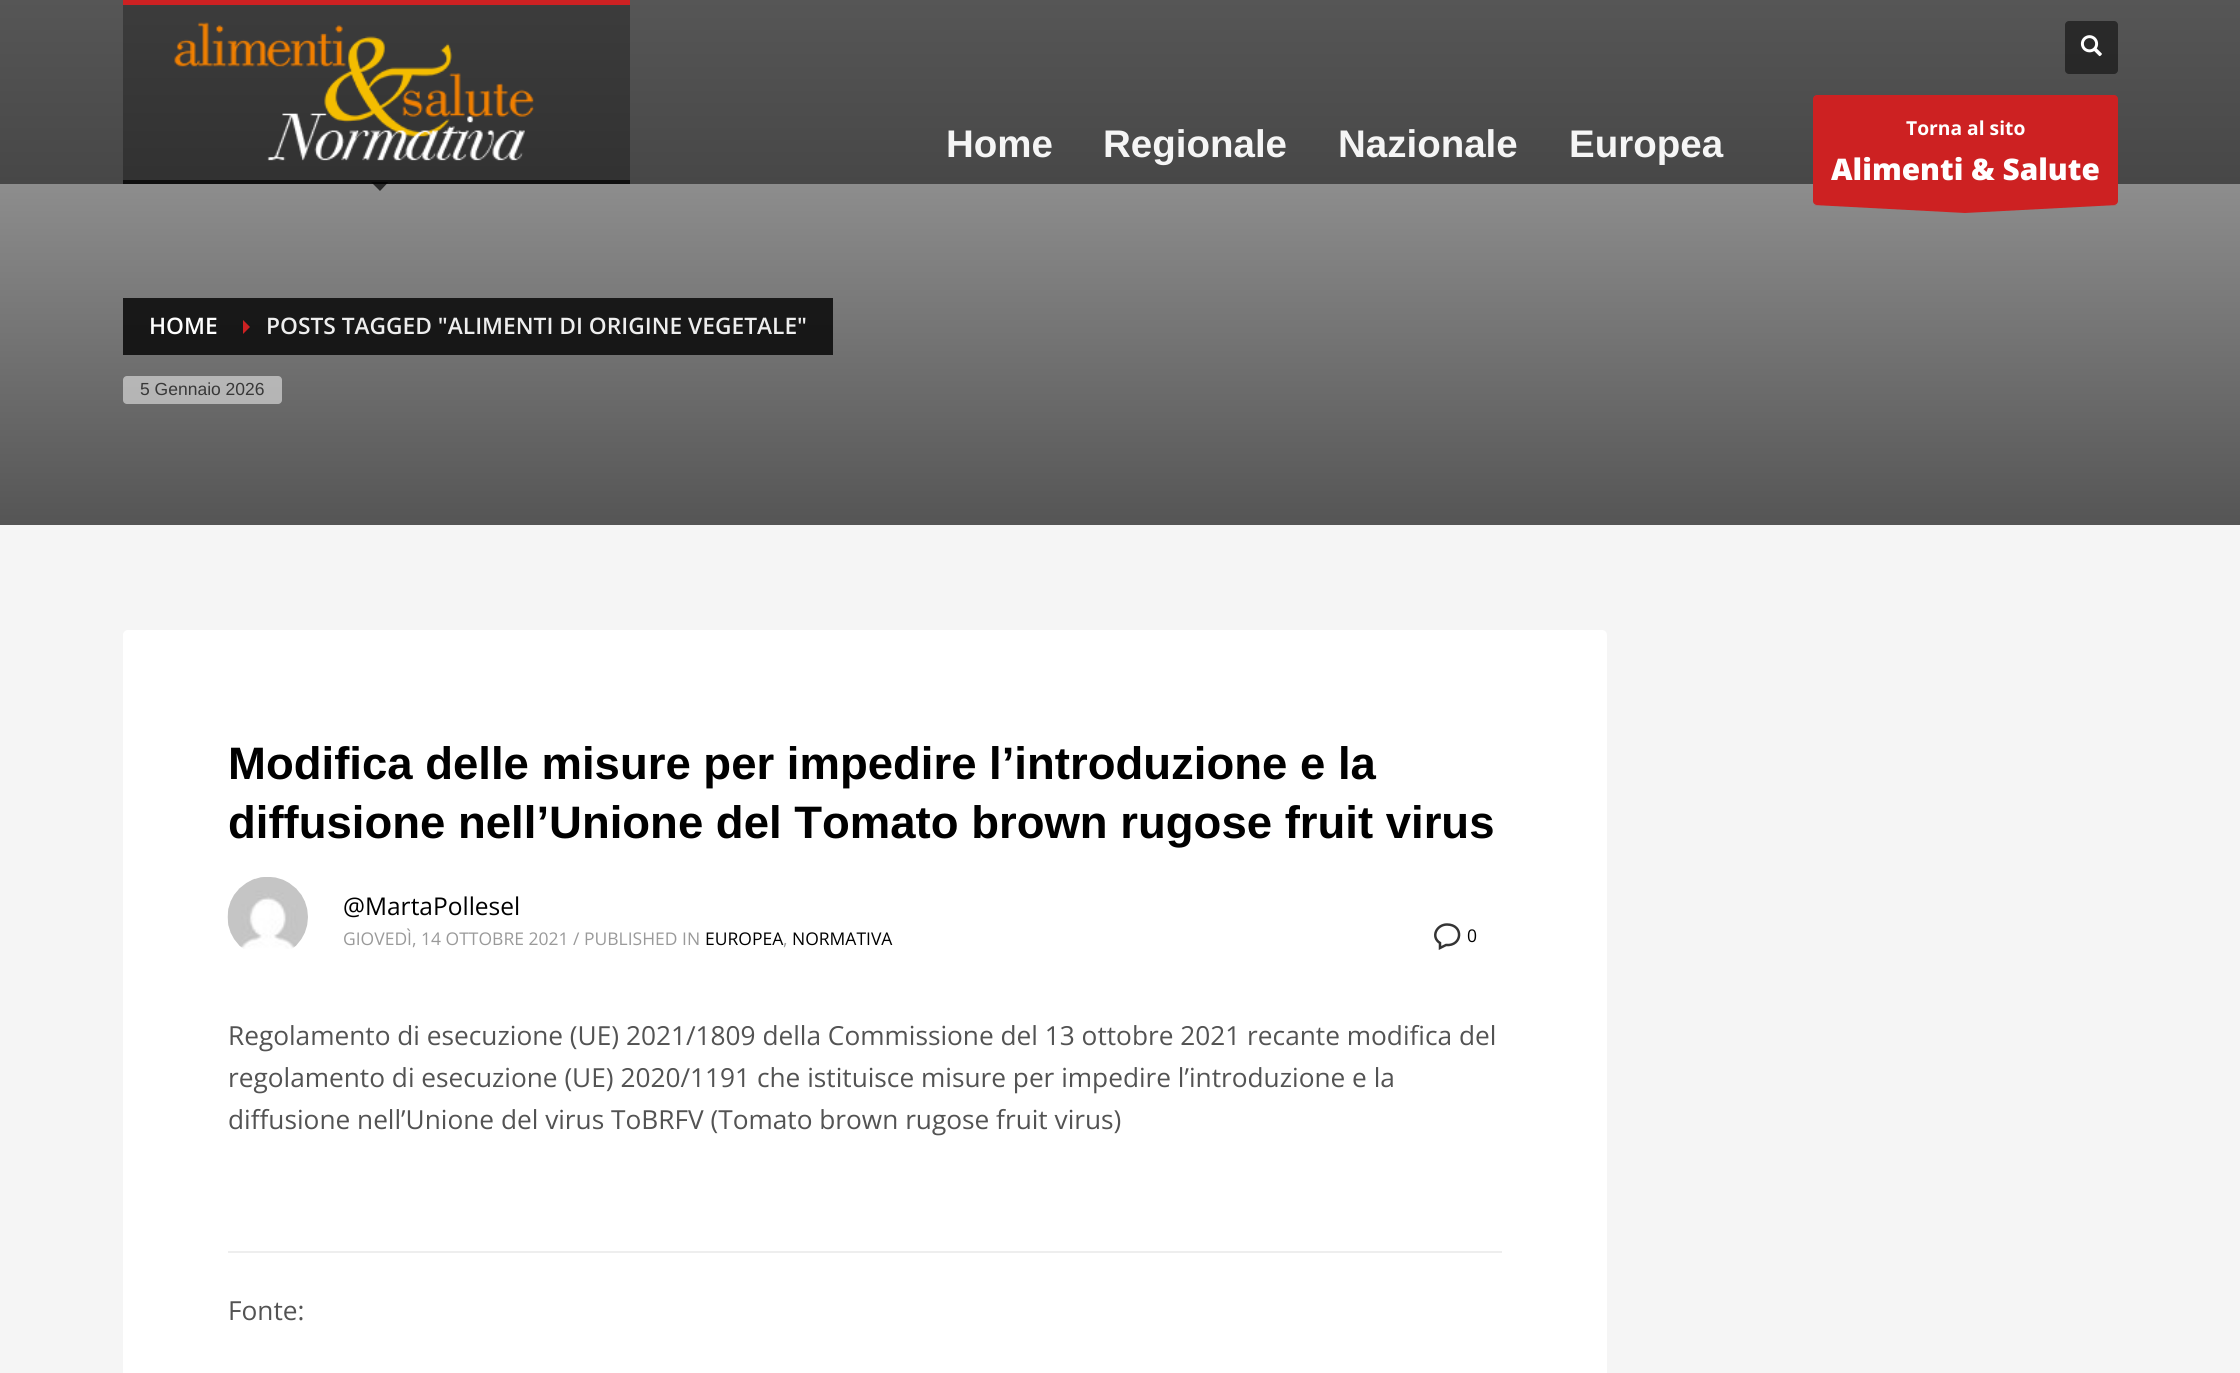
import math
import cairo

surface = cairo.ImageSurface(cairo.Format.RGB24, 2240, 1373)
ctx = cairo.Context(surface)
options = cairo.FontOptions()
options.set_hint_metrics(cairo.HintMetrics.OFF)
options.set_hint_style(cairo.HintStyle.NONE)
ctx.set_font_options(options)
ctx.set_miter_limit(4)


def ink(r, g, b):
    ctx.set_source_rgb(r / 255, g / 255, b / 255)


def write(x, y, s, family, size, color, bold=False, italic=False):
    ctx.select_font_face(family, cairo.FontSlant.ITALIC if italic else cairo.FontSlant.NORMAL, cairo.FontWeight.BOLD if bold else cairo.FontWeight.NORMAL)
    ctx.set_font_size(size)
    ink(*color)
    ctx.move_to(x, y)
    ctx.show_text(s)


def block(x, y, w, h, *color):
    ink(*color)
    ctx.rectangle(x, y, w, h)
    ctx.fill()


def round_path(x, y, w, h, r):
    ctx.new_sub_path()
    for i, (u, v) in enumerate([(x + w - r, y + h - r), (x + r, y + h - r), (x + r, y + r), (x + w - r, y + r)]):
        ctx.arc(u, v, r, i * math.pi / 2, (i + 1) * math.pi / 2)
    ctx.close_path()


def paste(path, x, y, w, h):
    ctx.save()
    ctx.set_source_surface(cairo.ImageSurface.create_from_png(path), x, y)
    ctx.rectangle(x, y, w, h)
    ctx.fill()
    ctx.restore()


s1 = dict(family="Liberation Sans", size=38.5, color=(245, 245, 245), bold=True)
s2 = dict(family="Open Sans", size=19.25, color=(255, 255, 255), bold=True)
s3 = dict(family="Open Sans ExtraBold", size=29.75, color=(255, 255, 255))
s4 = dict(family="Open Sans SemiBold", size=22.75, color=(255, 255, 255))
s5 = dict(family="Open Sans SemiBold", size=22.75, color=(238, 238, 238))
s6 = dict(family="Liberation Sans", size=17.5, color=(56, 56, 56))
s7 = dict(family="Liberation Sans", size=45.5, color=(0, 0, 0), bold=True)
s8 = dict(family="Open Sans", size=24.5, color=(0, 0, 0))
s9 = dict(family="Open Sans", size=17.5, color=(154, 154, 154))
s10 = dict(family="Open Sans", size=17.5, color=(0, 0, 0))
s11 = dict(family="Open Sans", size=26.25, color=(83, 83, 83))

ink(245, 245, 245)
ctx.paint()
gradient = cairo.LinearGradient(1120, 0, 1120, 525)
gradient.add_color_stop_rgba(0, 0.337, 0.337, 0.337, 1)
gradient.add_color_stop_rgba(1, 0.169, 0.169, 0.169, 1)
ctx.set_source(gradient)
ctx.rectangle(0, 0, 2240, 184)
ctx.fill()
block(123, 0, 507, 5, 205, 33, 34)
block(123, 180, 507, 4, 15, 15, 15)
gradient = cairo.LinearGradient(1120, 0, 1120, 525)
gradient.add_color_stop_rgba(0, 0.235, 0.235, 0.235, 1)
gradient.add_color_stop_rgba(1, 0.118, 0.118, 0.118, 1)
ctx.set_source(gradient)
ctx.rectangle(123, 5, 507, 175)
ctx.fill()
paste("pic1.png", 174, 22, 360, 139)
gradient = cairo.LinearGradient(1120, 0, 1120, 525)
gradient.add_color_stop_rgba(0, 0.671, 0.671, 0.671, 1)
gradient.add_color_stop_rgba(1, 0.333, 0.333, 0.333, 1)
ctx.set_source(gradient)
ctx.rectangle(0, 184, 2240, 341)
ctx.fill()
ctx.set_source_rgba(0, 0, 0, 0.7)
ctx.new_path()
ctx.move_to(371, 182)
ctx.line_to(388.5, 182)
ctx.line_to(380, 191)
ctx.close_path()
ctx.fill()
ctx.set_source_rgba(0, 0, 0, 0.5)
round_path(2065, 21, 53, 53, 4)
ctx.fill()
paste("pic2.png", 2080, 35, 22, 22)
write(946, 157, "Home", **s1)
write(1103, 157, "Regionale", **s1)
write(1338, 157, "Nazionale", **s1)
write(1569, 157, "Europea", **s1)
ink(205, 33, 34)
round_path(1813, 95, 305, 110, 4)
ctx.fill()
write(1906, 135, "Torna al sito", **s2)
write(1831, 180, "Alimenti & Salute", **s3)
ink(205, 33, 34)
ctx.set_fill_rule(cairo.FillRule.EVEN_ODD)
ctx.new_path()
ctx.move_to(2117, 205)
ctx.line_to(1965, 213)
ctx.line_to(1813, 205)
ctx.close_path()
ctx.fill()
gradient = cairo.LinearGradient(1120, 0, 1120, 525)
gradient.add_color_stop_rgba(0, 0.133, 0.133, 0.133, 1)
gradient.add_color_stop_rgba(1, 0.067, 0.067, 0.067, 1)
ctx.set_source(gradient)
ctx.rectangle(226, 298, 607, 57)
ctx.fill()
ctx.rectangle(123, 298, 103, 57)
ctx.fill()
write(149, 334, "HOME", **s4)
ink(205, 33, 34)
ctx.set_fill_rule(cairo.FillRule.WINDING)
ctx.new_path()
ctx.move_to(243, 334)
ctx.line_to(243, 320)
ctx.line_to(250, 327)
ctx.close_path()
ctx.fill()
write(266, 334, "POSTS TAGGED \"ALIMENTI DI ORIGINE VEGETALE\"", **s5)
ctx.set_source_rgba(1, 1, 1, 0.5)
round_path(123, 376, 159, 28, 4)
ctx.fill()
write(140, 395, "5 Gennaio 2026", **s6)
ink(255, 255, 255)
round_path(123, 630, 1484, 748, 5)
ctx.fill()
write(228, 779, "Modifica delle misure per impedire l’introduzione e la", **s7)
write(228, 838, "diffusione nell’Unione del Tomato brown rugose fruit virus", **s7)
paste("pic3.png", 227, 877, 81, 72)
write(343, 915, "@MartaPollesel", **s8)
write(343, 945, "GIOVEDÌ, 14 OTTOBRE 2021 / PUBLISHED IN", **s9)
write(705, 945, "EUROPEA", **s10)
write(783, 945, ",", **s9)
write(792, 945, "NORMATIVA", **s10)
ctx.new_path()
ctx.move_to(1447, 924.5)
ctx.curve_to(1436.5, 924.5, 1430.5, 937, 1440, 943)
ctx.line_to(1440, 948)
ctx.line_to(1446, 945)
ctx.curve_to(1462.5, 946.5, 1464, 924.5, 1447, 924.5)
ctx.close_path()
ink(52, 52, 52)
ctx.set_line_width(2.5)
ctx.stroke()
write(1467, 942, "0", **s10)
write(228, 1045, "Regolamento di esecuzione (UE) 2021/1809 della Commissione del 13 ottobre 2021 recante modifica del", **s11)
write(228, 1087, "regolamento di esecuzione (UE) 2020/1191 che istituisce misure per impedire l’introduzione e la", **s11)
write(228, 1129, "diffusione nell’Unione del virus ToBRFV (Tomato brown rugose fruit virus)", **s11)
block(228, 1251, 1274, 2, 238, 238, 238)
write(228, 1320, "Fonte:", **s11)
surface.write_to_png("screenshot.png")
